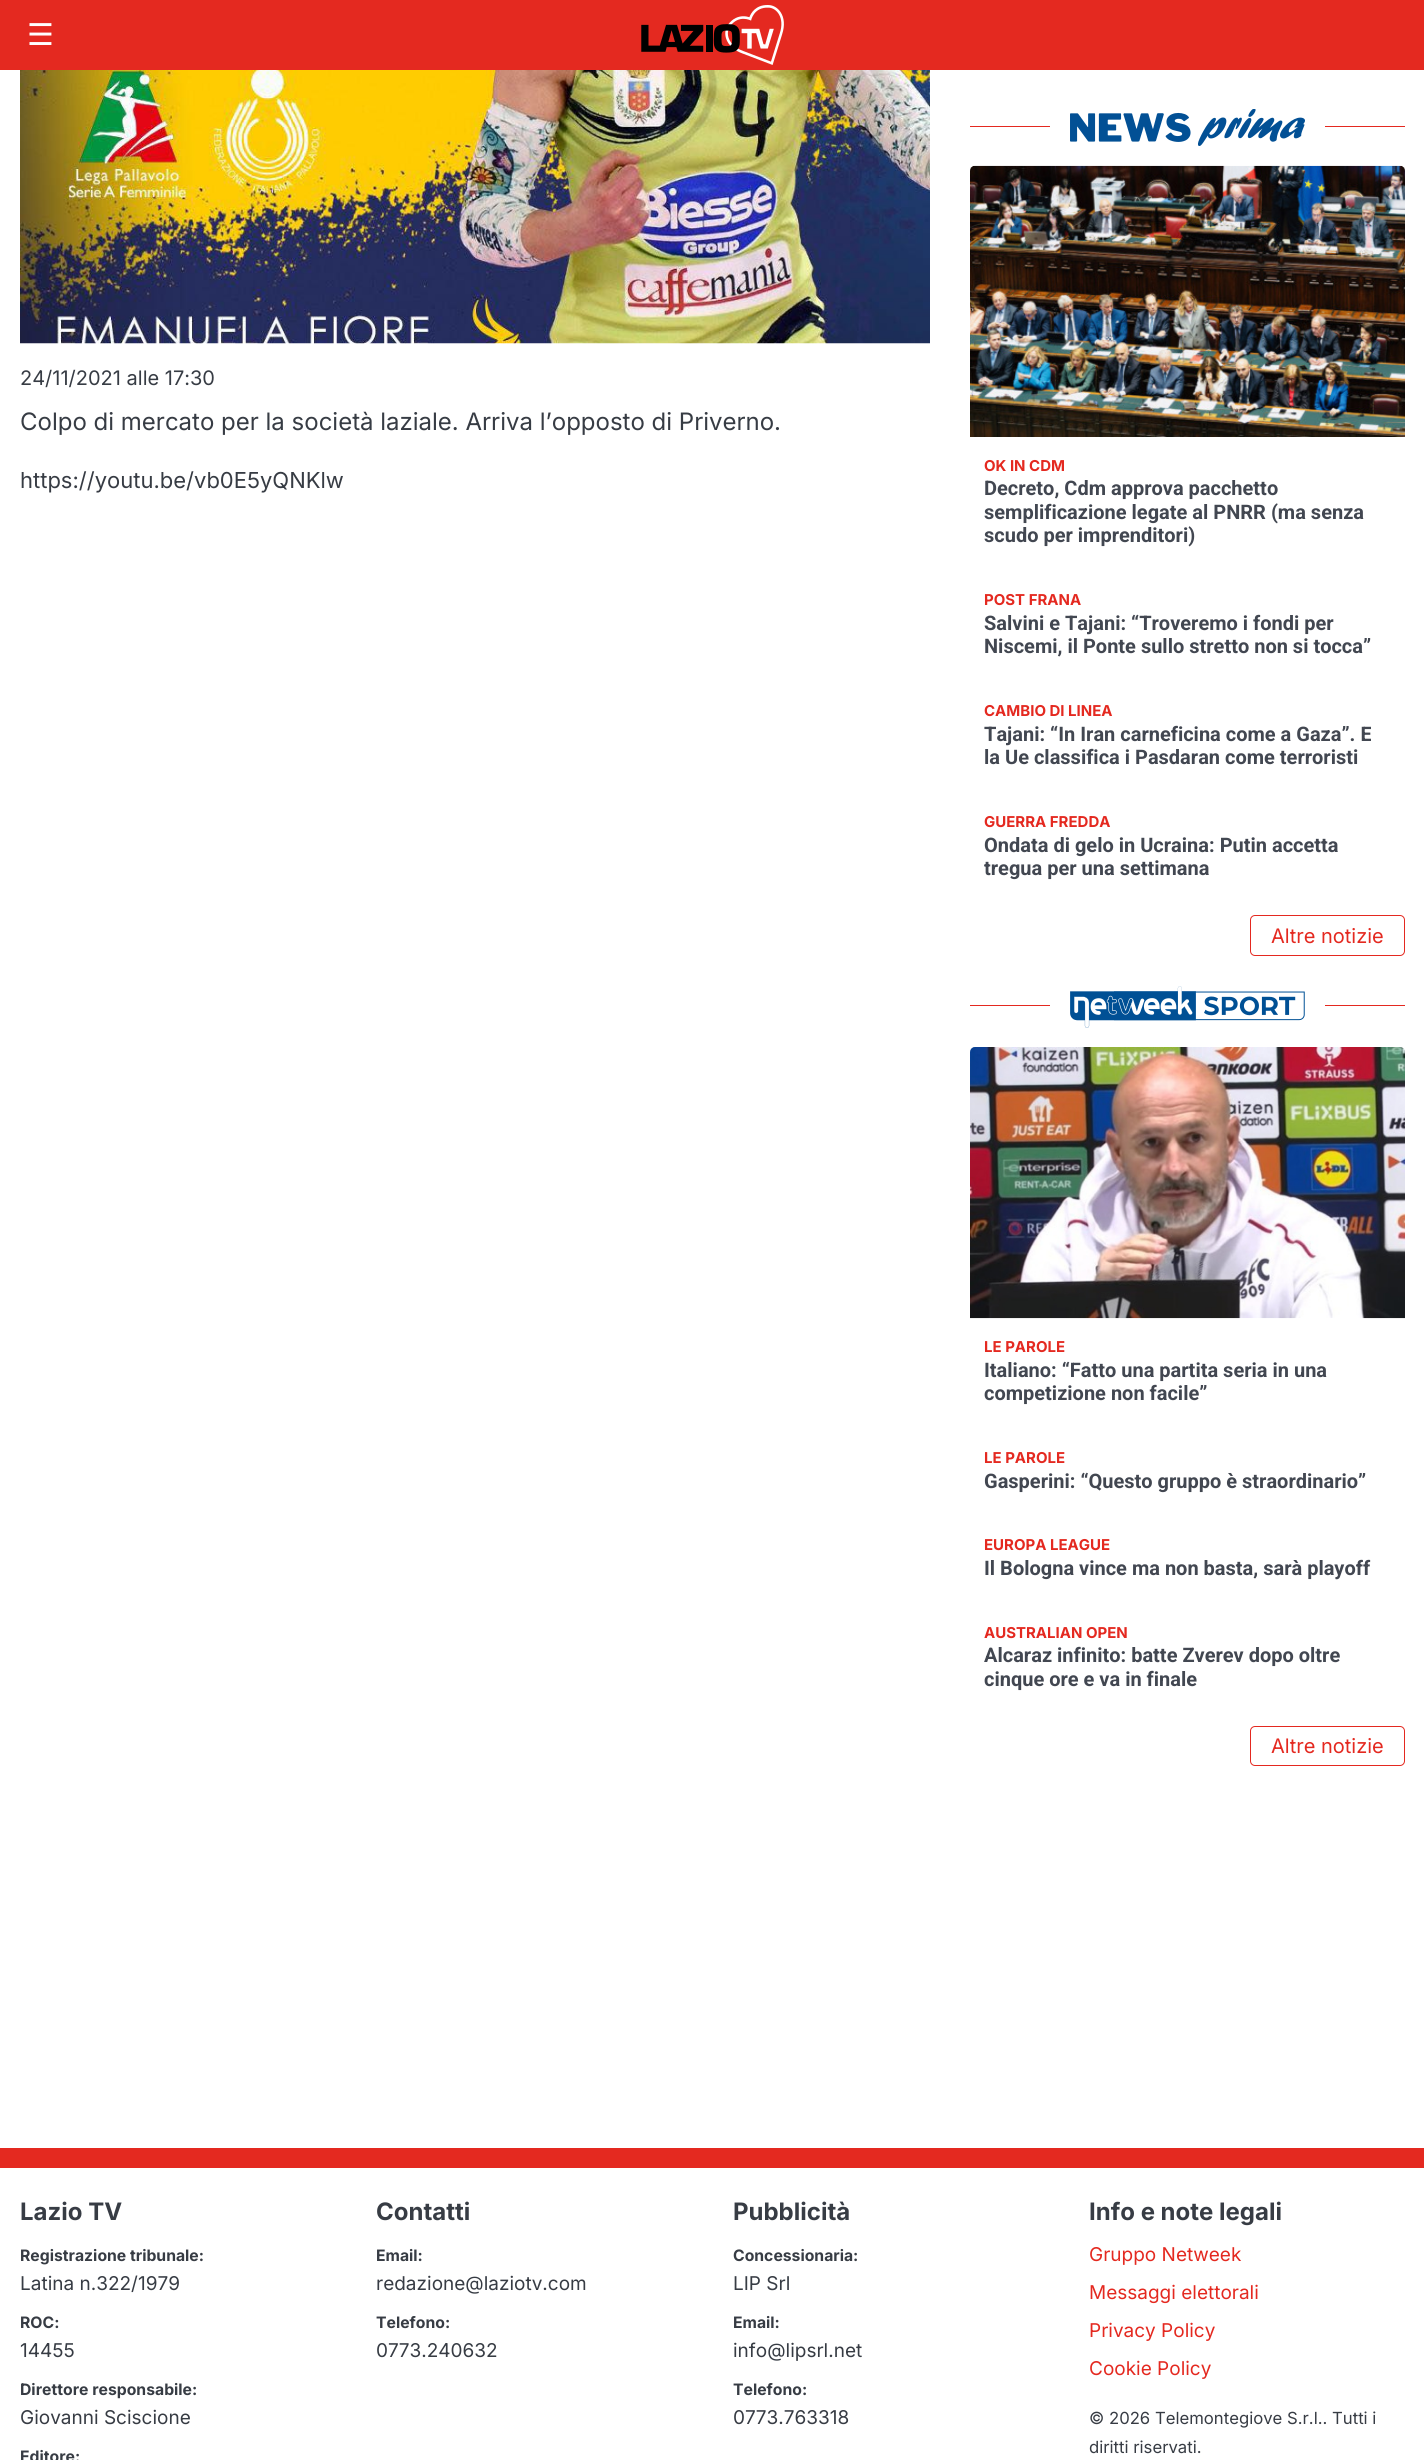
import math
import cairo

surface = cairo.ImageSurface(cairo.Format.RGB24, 1424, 2460)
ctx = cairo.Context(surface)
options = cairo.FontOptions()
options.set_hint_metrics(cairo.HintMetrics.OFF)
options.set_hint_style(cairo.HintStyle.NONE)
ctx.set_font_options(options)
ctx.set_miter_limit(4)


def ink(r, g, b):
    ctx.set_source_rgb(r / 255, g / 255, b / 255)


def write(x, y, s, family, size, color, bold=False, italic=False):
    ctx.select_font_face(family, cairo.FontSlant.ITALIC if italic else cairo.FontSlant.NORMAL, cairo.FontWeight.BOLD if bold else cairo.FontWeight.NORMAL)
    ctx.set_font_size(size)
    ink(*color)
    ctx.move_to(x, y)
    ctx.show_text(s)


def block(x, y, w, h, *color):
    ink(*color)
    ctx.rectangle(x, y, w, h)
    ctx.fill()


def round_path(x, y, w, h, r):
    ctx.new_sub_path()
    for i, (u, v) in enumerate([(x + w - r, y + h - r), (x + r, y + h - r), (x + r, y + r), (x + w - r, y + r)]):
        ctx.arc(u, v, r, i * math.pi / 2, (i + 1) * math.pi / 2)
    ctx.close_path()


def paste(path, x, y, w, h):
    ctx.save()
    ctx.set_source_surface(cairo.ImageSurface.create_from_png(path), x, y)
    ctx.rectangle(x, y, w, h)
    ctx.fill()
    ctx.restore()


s1 = dict(family="DejaVu Sans", size=30, color=(255, 255, 255))
s2 = dict(family="Inter", size=20, color=(55, 60, 68))
s3 = dict(family="Inter", size=24, color=(55, 60, 68))
s4 = dict(family="Inter", size=22, color=(55, 60, 68))
s5 = dict(family="Inter", size=15, color=(228, 41, 32), bold=True)
s6 = dict(family="Roboto", size=20, color=(66, 71, 81), bold=True)
s7 = dict(family="Inter", size=20, color=(228, 41, 32))
s8 = dict(family="Inter", size=24, color=(55, 60, 68), bold=True)
s9 = dict(family="Inter", size=15.75, color=(55, 60, 68), bold=True)
s10 = dict(family="Inter", size=19, color=(55, 60, 68))
s11 = dict(family="Inter", size=19, color=(228, 41, 32))
s12 = dict(family="Inter", size=16.7, color=(55, 60, 68))

ink(255, 255, 255)
ctx.paint()
block(0, 0, 1424, 70, 228, 41, 32)
write(27, 45, "☰", **s1)
paste("pic1.png", 641, 5, 143, 60)
paste("pic2.png", 20, 70, 910, 274)
write(20, 385, "24/11/2021 alle 17:30", **s2)
write(20, 430, "Colpo di mercato per la società laziale. Arriva l’opposto di Priverno.", **s3)
write(20, 488, "https://youtu.be/vb0E5yQNKlw", **s4)
block(970, 126, 435, 1, 228, 41, 32)
block(1050, 126, 275, 1, 255, 255, 255)
paste("pic3.png", 1070, 109, 235, 37)
paste("pic4.png", 970, 165, 435, 272)
write(984, 471, "OK IN CDM", **s5)
write(984, 495, "Decreto, Cdm approva pacchetto", **s6)
write(984, 519, "semplificazione legate al PNRR (ma senza", **s6)
write(984, 542, "scudo per imprenditori)", **s6)
write(984, 605, "POST FRANA", **s5)
write(984, 630, "Salvini e Tajani: “Troveremo i fondi per", **s6)
write(984, 653, "Niscemi, il Ponte sullo stretto non si tocca”", **s6)
write(984, 716, "CAMBIO DI LINEA", **s5)
write(984, 741, "Tajani: “In Iran carneficina come a Gaza”. E", **s6)
write(984, 764, "la Ue classifica i Pasdaran come terroristi", **s6)
write(984, 827, "GUERRA FREDDA", **s5)
write(984, 852, "Ondata di gelo in Ucraina: Putin accetta", **s6)
write(984, 875, "tregua per una settimana", **s6)
round_path(1250.5, 915.5, 154, 40, 4.5)
ink(228, 41, 32)
ctx.set_line_width(1)
ctx.stroke()
write(1271, 943, "Altre notizie", **s7)
block(970, 1005, 435, 1, 228, 41, 32)
block(1050, 1005, 275, 1, 255, 255, 255)
paste("pic5.png", 1070, 986, 235, 42)
paste("pic6.png", 970, 1047, 435, 272)
write(984, 1352, "LE PAROLE", **s5)
write(984, 1377, "Italiano: “Fatto una partita seria in una", **s6)
write(984, 1400, "competizione non facile”", **s6)
write(984, 1463, "LE PAROLE", **s5)
write(984, 1488, "Gasperini: “Questo gruppo è straordinario”", **s6)
write(984, 1550, "EUROPA LEAGUE", **s5)
write(984, 1575, "Il Bologna vince ma non basta, sarà playoff", **s6)
write(984, 1638, "AUSTRALIAN OPEN", **s5)
write(984, 1662, "Alcaraz infinito: batte Zverev dopo oltre", **s6)
write(984, 1686, "cinque ore e va in finale", **s6)
round_path(1250.5, 1726.5, 154, 39, 4.5)
ink(228, 41, 32)
ctx.stroke()
write(1271, 1753, "Altre notizie", **s7)
block(0, 2148, 1424, 20, 228, 41, 32)
write(20, 2220, "Lazio TV", **s8)
write(20, 2261, "Registrazione tribunale:", **s9)
write(20, 2290, "Latina n.322/1979", **s10)
write(20, 2328, "ROC:", **s9)
write(20, 2357, "14455", **s10)
write(20, 2395, "Direttore responsabile:", **s9)
write(20, 2424, "Giovanni Sciscione", **s10)
write(20, 2462, "Editore:", **s9)
write(376, 2220, "Contatti", **s8)
write(376, 2261, "Email:", **s9)
write(376, 2290, "redazione@laziotv.com", **s10)
write(376, 2328, "Telefono:", **s9)
write(376, 2357, "0773.240632", **s10)
write(733, 2220, "Pubblicità", **s8)
write(733, 2261, "Concessionaria:", **s9)
write(733, 2290, "LIP Srl", **s10)
write(733, 2328, "Email:", **s9)
write(733, 2357, "info@lipsrl.net", **s10)
write(733, 2395, "Telefono:", **s9)
write(733, 2424, "0773.763318", **s10)
write(1089, 2220, "Info e note legali", **s8)
write(1089, 2261, "Gruppo Netweek", **s11)
write(1089, 2299, "Messaggi elettorali", **s11)
write(1089, 2337, "Privacy Policy", **s11)
write(1089, 2375, "Cookie Policy", **s11)
write(1089, 2424, "© 2026 Telemontegiove S.r.l.. Tutti i", **s12)
write(1089, 2453, "diritti riservati.", **s12)
surface.write_to_png("screenshot.png")
